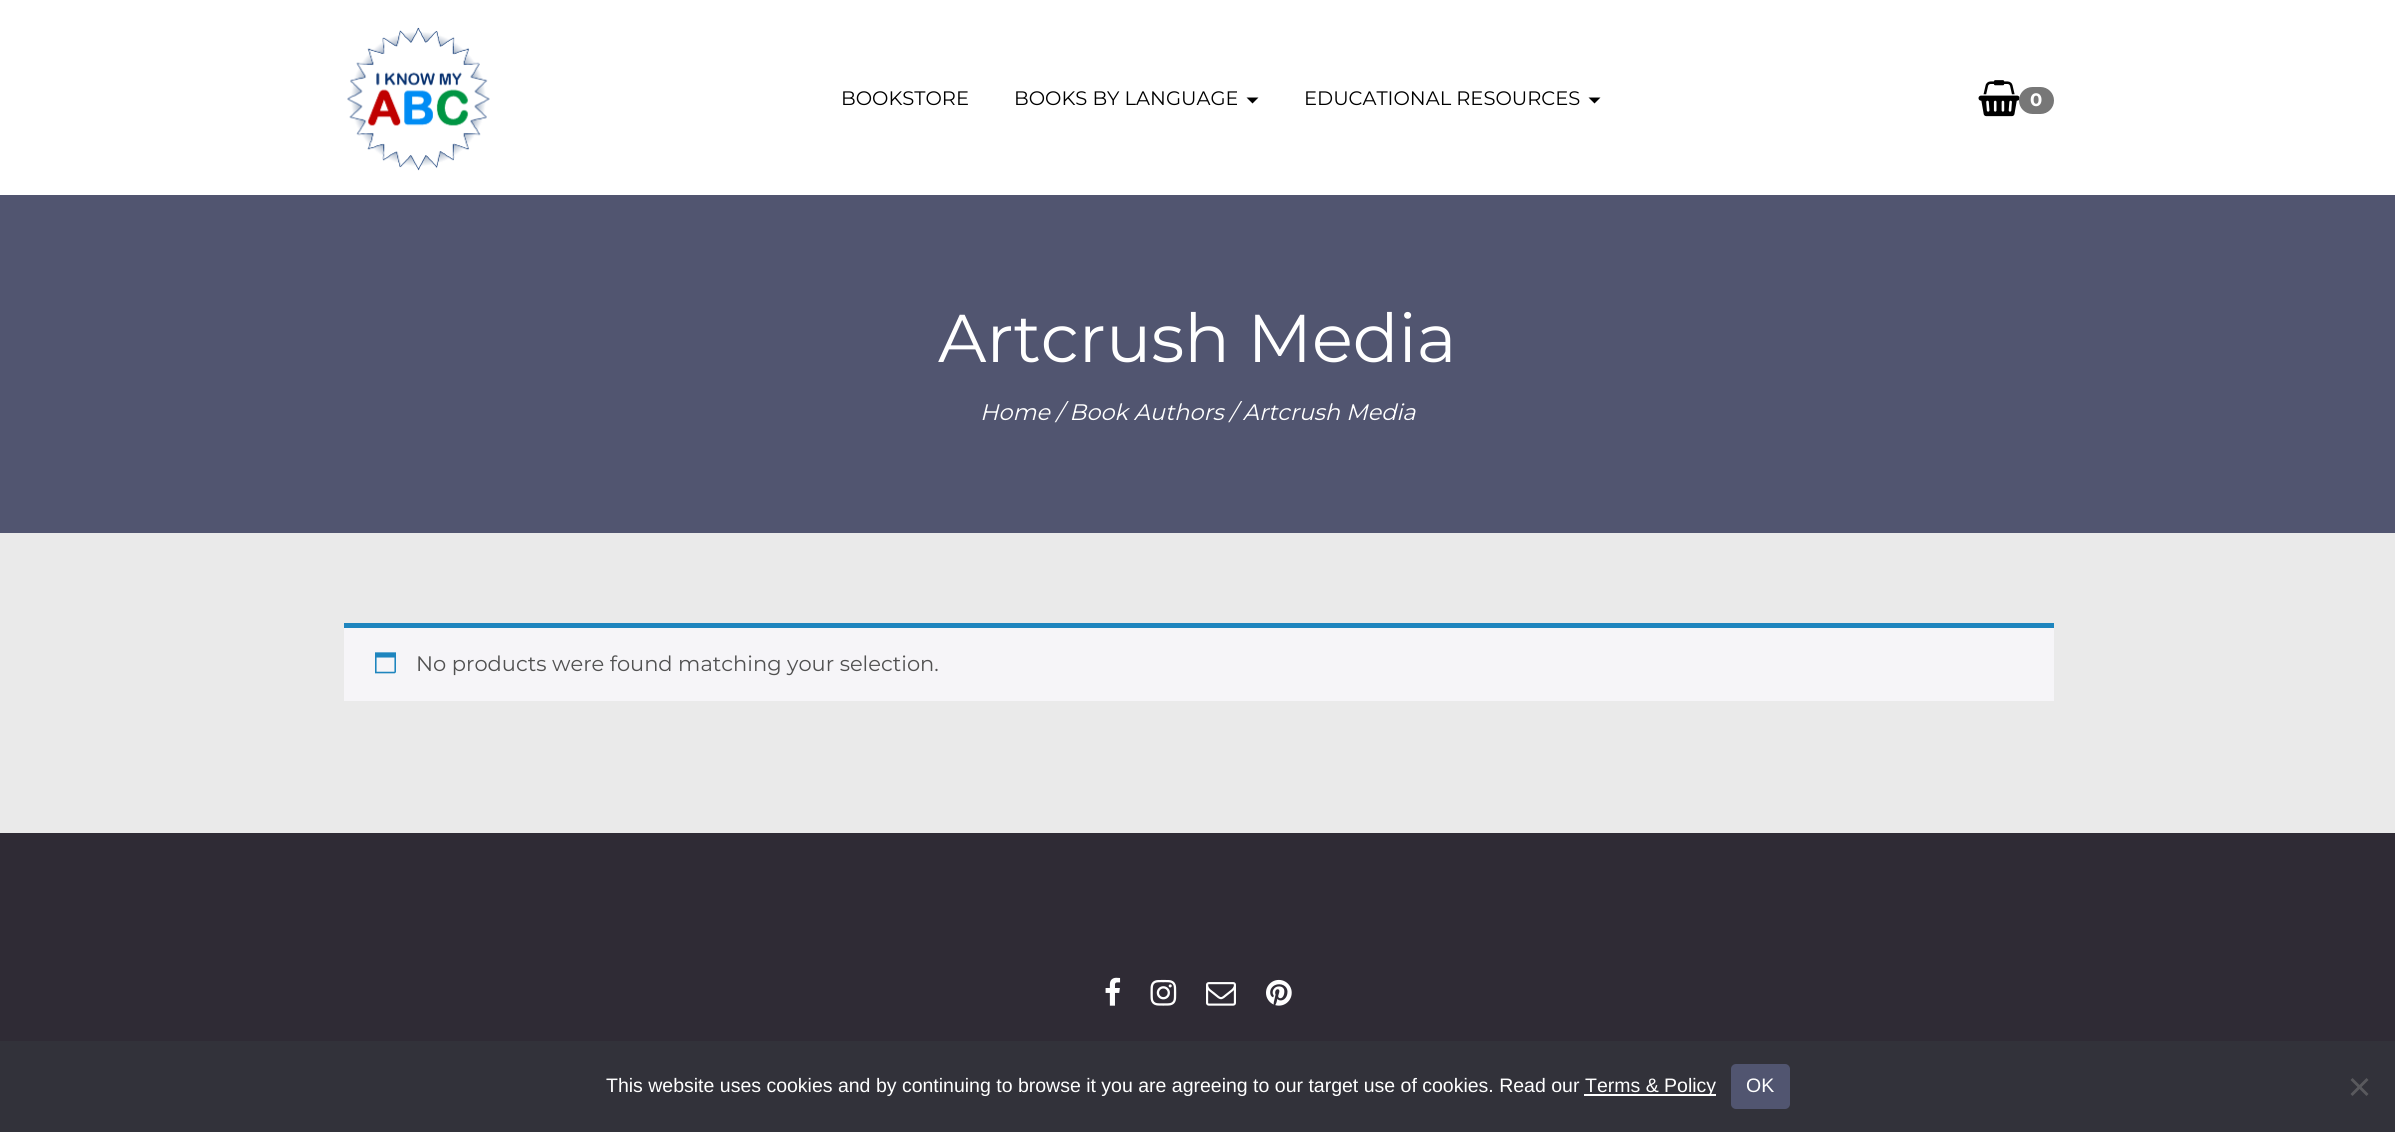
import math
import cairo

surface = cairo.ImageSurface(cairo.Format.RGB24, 2395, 1132)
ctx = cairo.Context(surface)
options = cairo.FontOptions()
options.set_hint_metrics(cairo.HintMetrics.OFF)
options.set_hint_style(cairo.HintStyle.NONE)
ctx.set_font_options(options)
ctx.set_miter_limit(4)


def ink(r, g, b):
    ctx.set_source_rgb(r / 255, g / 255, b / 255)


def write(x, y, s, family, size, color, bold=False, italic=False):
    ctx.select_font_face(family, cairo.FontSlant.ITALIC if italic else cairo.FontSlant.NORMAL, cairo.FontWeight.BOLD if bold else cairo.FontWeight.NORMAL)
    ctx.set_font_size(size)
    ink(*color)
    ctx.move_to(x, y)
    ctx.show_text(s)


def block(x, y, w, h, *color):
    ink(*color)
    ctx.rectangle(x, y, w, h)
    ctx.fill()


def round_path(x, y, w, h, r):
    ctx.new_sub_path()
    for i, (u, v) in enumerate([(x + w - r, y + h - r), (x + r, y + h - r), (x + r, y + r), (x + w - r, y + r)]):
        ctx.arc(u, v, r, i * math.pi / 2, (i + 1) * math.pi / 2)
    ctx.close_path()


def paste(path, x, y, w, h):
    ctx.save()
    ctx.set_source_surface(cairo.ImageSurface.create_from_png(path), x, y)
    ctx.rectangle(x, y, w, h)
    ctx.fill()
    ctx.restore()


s1 = dict(family="Montserrat", size=19.5, color=(0, 0, 0))
s2 = dict(family="Montserrat", size=18, color=(255, 255, 255), bold=True)
s3 = dict(family="Montserrat", size=67.5, color=(255, 255, 255))
s4 = dict(family="Montserrat", size=22.5, color=(255, 255, 255), italic=True)
s5 = dict(family="Montserrat", size=21, color=(81, 81, 81))
s6 = dict(family="Liberation Sans", size=19.5, color=(255, 255, 255))

ink(234, 234, 234)
ctx.paint()
block(0, 0, 2395, 195, 255, 255, 255)
paste("pic1.png", 347, 27, 143, 144)
write(841, 105, "BOOKSTORE", **s1)
write(1014, 105, "BOOKS BY LANGUAGE", **s1)
ctx.new_path()
ctx.move_to(1246.5, 97.5)
ctx.line_to(1258.5, 97.5)
ctx.line_to(1252.5, 103.5)
ctx.close_path()
ctx.fill()
write(1304, 105, "EDUCATIONAL RESOURCES", **s1)
ctx.new_path()
ctx.move_to(1588.5, 97.5)
ctx.line_to(1600.5, 97.5)
ctx.line_to(1594.5, 103.5)
ctx.close_path()
ctx.fill()
paste("pic2.png", 1978, 80, 42, 37)
ink(119, 119, 119)
round_path(2019, 87, 35, 27, 13.5)
ctx.fill()
write(2030, 106, "0", **s2)
block(0, 195, 2395, 338, 81, 85, 112)
write(938, 362, "Artcrush Media", **s3)
write(980, 420, "Home / Book Authors / Artcrush Media", **s4)
block(344, 628, 1710, 73, 246, 245, 248)
block(344, 623, 1710, 5, 30, 133, 190)
paste("pic3.png", 375, 652, 21, 22)
write(416, 671, "No products were found matching your selection.", **s5)
block(0, 833, 2395, 208, 47, 43, 53)
paste("pic4.png", 1105, 977, 16, 29)
paste("pic5.png", 1150, 979, 27, 27)
paste("pic6.png", 1206, 982, 30, 24)
paste("pic7.png", 1266, 979, 26, 27)
block(0, 1041, 2395, 91, 50, 50, 58)
write(606, 1092, "This website uses cookies and by continuing to browse it you are agreeing to our target use of cookies. Read our", **s6)
block(1584, 1094, 132, 2, 255, 255, 255)
write(1585, 1092, "Terms & Policy", **s6)
ink(81, 85, 112)
round_path(1731, 1064, 59, 45, 5)
ctx.fill()
write(1746, 1092, "OK", **s6)
ink(89, 89, 93)
ctx.new_path()
ctx.move_to(2366.5, 1078)
ctx.line_to(2368.5, 1080)
ctx.line_to(2352.5, 1096)
ctx.line_to(2350.5, 1094)
ctx.close_path()
ctx.fill()
ctx.new_path()
ctx.move_to(2350.5, 1080)
ctx.line_to(2352.5, 1078)
ctx.line_to(2368.5, 1094)
ctx.line_to(2366.5, 1096)
ctx.close_path()
ctx.fill()
surface.write_to_png("screenshot.png")
